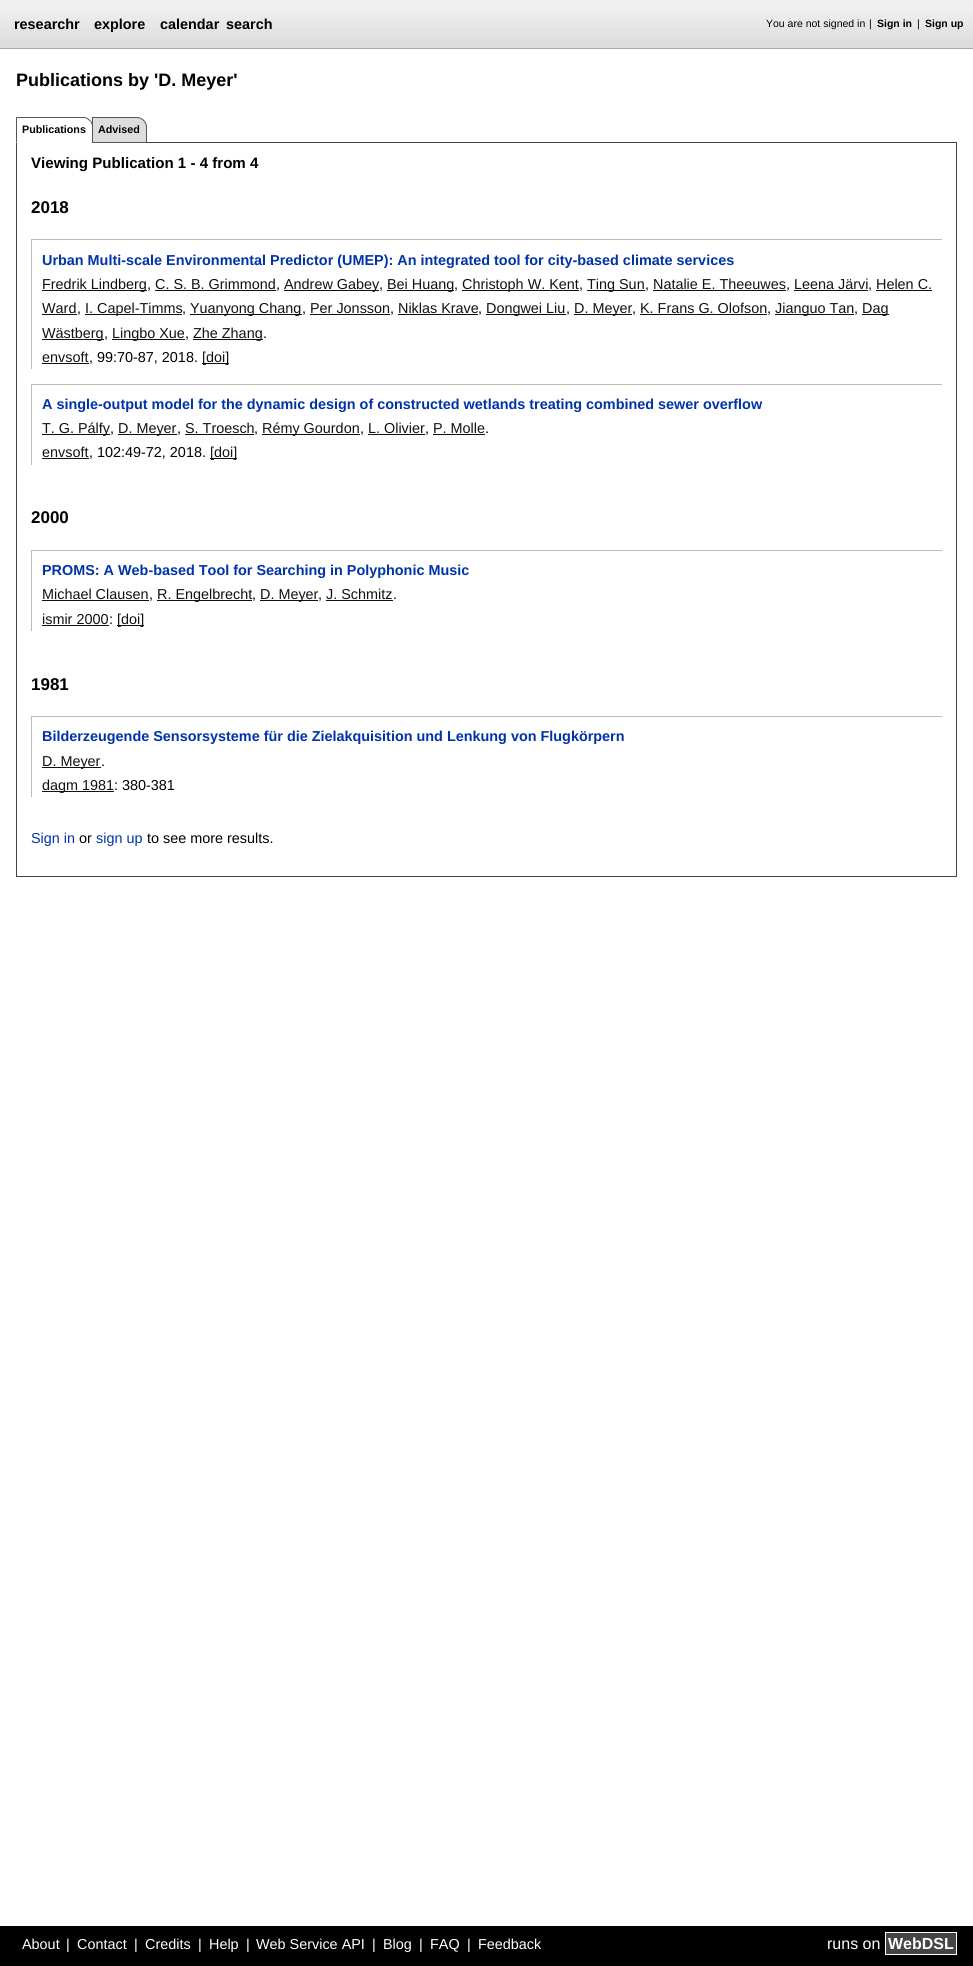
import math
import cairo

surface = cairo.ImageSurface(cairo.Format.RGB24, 973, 1966)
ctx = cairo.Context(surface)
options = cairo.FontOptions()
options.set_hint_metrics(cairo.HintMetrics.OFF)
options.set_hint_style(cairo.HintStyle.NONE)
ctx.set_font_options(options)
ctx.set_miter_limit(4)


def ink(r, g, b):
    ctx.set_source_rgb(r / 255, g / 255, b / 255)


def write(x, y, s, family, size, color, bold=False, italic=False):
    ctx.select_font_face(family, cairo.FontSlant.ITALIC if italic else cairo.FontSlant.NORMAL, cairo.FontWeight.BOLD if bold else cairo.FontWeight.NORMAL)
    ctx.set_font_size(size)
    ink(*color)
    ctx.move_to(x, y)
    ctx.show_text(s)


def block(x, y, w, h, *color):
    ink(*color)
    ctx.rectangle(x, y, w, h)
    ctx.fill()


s1 = dict(family="Liberation Sans", size=14.4, color=(0, 0, 0), bold=True)
s2 = dict(family="Liberation Sans", size=10.5, color=(0, 0, 0))
s3 = dict(family="Liberation Sans", size=10.5, color=(0, 0, 0), bold=True)
s4 = dict(family="Liberation Sans", size=18, color=(0, 0, 0), bold=True)
s5 = dict(family="Liberation Sans", size=10.75, color=(0, 0, 0), bold=True)
s6 = dict(family="Liberation Sans", size=15.1, color=(0, 0, 0), bold=True)
s7 = dict(family="Liberation Sans", size=17, color=(0, 0, 0), bold=True)
s8 = dict(family="Liberation Sans", size=14.4, color=(0, 51, 170), bold=True)
s9 = dict(family="Liberation Sans", size=14.4, color=(17, 17, 17))
s10 = dict(family="Liberation Sans", size=14.4, color=(0, 0, 0))
s11 = dict(family="Liberation Sans", size=14.4, color=(0, 51, 170))
s12 = dict(family="Liberation Sans", size=14.4, color=(255, 255, 255))
s13 = dict(family="Liberation Sans", size=16, color=(255, 255, 255))
s14 = dict(family="Liberation Sans", size=16, color=(255, 255, 255), bold=True)

ink(255, 255, 255)
ctx.paint()
gradient = cairo.LinearGradient(0, 48, 0, 0)
gradient.add_color_stop_rgba(0.1, 0.867, 0.867, 0.867, 1)
gradient.add_color_stop_rgba(0.8, 0.937, 0.937, 0.937, 1)
ctx.set_source(gradient)
ctx.rectangle(0, 0, 973, 48)
ctx.fill()
block(0, 48, 973, 1, 170, 170, 170)
write(14, 29, "researchr", **s1)
write(94, 29, "explore", **s1)
write(160, 29, "calendar", **s1)
write(226, 29, "search", **s1)
write(766, 27, "You are not signed in", **s2)
write(869, 27, "|", **s2)
write(877, 27, "Sign in", **s3)
write(917, 27, "|", **s2)
write(925, 27, "Sign up", **s3)
write(16, 86, "Publications by 'D. Meyer'", **s4)
ctx.rectangle(16.5, 142.5, 940, 734)
ink(68, 68, 68)
ctx.set_line_width(1)
ctx.stroke()
ink(255, 255, 255)
ctx.new_path()
ctx.move_to(16, 117)
ctx.line_to(83, 117)
ctx.curve_to(88.5, 117, 93, 121.5, 93, 127)
ctx.line_to(93, 143)
ctx.line_to(16, 143)
ctx.close_path()
ctx.fill()
ink(85, 85, 85)
ctx.new_path()
ctx.move_to(16, 117)
ctx.line_to(17, 118)
ctx.line_to(83, 118)
ctx.curve_to(86, 118, 88, 119, 89, 121)
ctx.line_to(90, 120)
ctx.curve_to(88, 118, 86, 117, 83, 117)
ctx.close_path()
ctx.fill()
ctx.new_path()
ctx.move_to(93, 143)
ctx.line_to(93, 127)
ctx.curve_to(93, 124, 92, 121.5, 90, 120)
ctx.line_to(89.5, 120.5)
ctx.curve_to(91, 122, 92, 124.5, 92, 127)
ctx.line_to(92, 142)
ctx.close_path()
ctx.fill()
ink(255, 255, 255)
ctx.new_path()
ctx.move_to(93, 143)
ctx.line_to(92, 142)
ctx.line_to(17, 142)
ctx.line_to(16, 143)
ctx.close_path()
ctx.fill()
ink(85, 85, 85)
ctx.new_path()
ctx.move_to(16, 117)
ctx.line_to(16, 143)
ctx.line_to(17, 142)
ctx.line_to(17, 118)
ctx.close_path()
ctx.fill()
write(22, 133, "Publications", **s5)
ink(221, 221, 221)
ctx.new_path()
ctx.move_to(92.5, 117.5)
ctx.line_to(137, 117.5)
ctx.curve_to(142, 117.5, 146.5, 122, 146.5, 127)
ctx.line_to(146.5, 142.5)
ctx.line_to(92.5, 142.5)
ctx.close_path()
ctx.fill_preserve()
ink(85, 85, 85)
ctx.stroke()
write(98, 133, "Advised", **s5)
write(31, 168, "Viewing Publication 1 - 4 from 4", **s6)
write(31, 213, "2018", **s7)
block(31, 239, 911, 1, 187, 187, 187)
block(31, 239, 1, 130, 187, 187, 187)
write(42, 265, "Urban Multi-scale Environmental Predictor (UMEP): An integrated tool for city-based climate services", **s8)
block(42, 290, 105, 1, 17, 17, 17)
write(42, 289, "Fredrik Lindberg", **s9)
write(147, 289, ",", **s10)
write(155, 289, "C. S. B. Grimmond", **s9)
write(276, 289, ",", **s10)
block(155, 290, 121, 1, 17, 17, 17)
block(284, 290, 95, 1, 17, 17, 17)
write(284, 289, "Andrew Gabey", **s9)
write(379, 289, ",", **s10)
block(387, 290, 67, 1, 17, 17, 17)
write(387, 289, "Bei Huang", **s9)
write(454, 289, ",", **s10)
block(462, 290, 117, 1, 17, 17, 17)
write(462, 289, "Christoph W. Kent", **s9)
write(579, 289, ",", **s10)
block(587, 290, 58, 1, 17, 17, 17)
write(587, 289, "Ting Sun", **s9)
write(645, 289, ",", **s10)
write(653, 289, "Natalie E. Theeuwes", **s9)
write(786, 289, ",", **s10)
block(653, 290, 133, 1, 17, 17, 17)
write(794, 289, "Leena Järvi", **s9)
write(868, 289, ",", **s10)
block(794, 290, 74, 1, 17, 17, 17)
block(876, 290, 56, 1, 17, 17, 17)
write(876, 289, "Helen C.", **s9)
write(42, 313, "Ward", **s9)
write(77, 313, ",", **s10)
block(42, 314, 35, 1, 17, 17, 17)
block(85, 314, 97, 1, 17, 17, 17)
write(85, 313, "I. Capel-Timms", **s9)
write(182, 313, ",", **s10)
block(190, 314, 112, 1, 17, 17, 17)
write(190, 313, "Yuanyong Chang", **s9)
write(302, 313, ",", **s10)
write(310, 313, "Per Jonsson", **s9)
write(390, 313, ",", **s10)
block(310, 314, 80, 1, 17, 17, 17)
write(398, 313, "Niklas Krave", **s9)
write(478, 313, ",", **s10)
block(398, 314, 80, 1, 17, 17, 17)
block(486, 314, 80, 1, 17, 17, 17)
write(486, 313, "Dongwei Liu", **s9)
write(566, 313, ",", **s10)
block(574, 314, 58, 1, 17, 17, 17)
write(574, 313, "D. Meyer", **s9)
write(632, 313, ",", **s10)
write(640, 313, "K. Frans G. Olofson", **s9)
write(767, 313, ",", **s10)
block(640, 314, 127, 1, 17, 17, 17)
block(775, 314, 79, 1, 17, 17, 17)
write(775, 313, "Jianguo Tan", **s9)
write(854, 313, ",", **s10)
block(862, 314, 27, 1, 17, 17, 17)
write(862, 313, "Dag", **s9)
block(42, 339, 62, 1, 17, 17, 17)
write(42, 338, "Wästberg", **s9)
write(104, 338, ",", **s10)
block(112, 339, 73, 1, 17, 17, 17)
write(112, 338, "Lingbo Xue", **s9)
write(185, 338, ",", **s10)
block(193, 339, 70, 1, 17, 17, 17)
write(193, 338, "Zhe Zhang", **s9)
write(263, 338, ".", **s10)
write(42, 362, "envsoft", **s9)
block(42, 363, 47, 1, 17, 17, 17)
write(89, 362, ", 99:70-87, 2018.", **s10)
block(202, 363, 27, 1, 17, 17, 17)
write(202, 362, "[doi]", **s9)
block(31, 384, 911, 1, 187, 187, 187)
block(31, 384, 1, 81, 187, 187, 187)
write(42, 409, "A single-output model for the dynamic design of constructed wetlands treating combined sewer overflow", **s8)
block(42, 434, 68, 1, 17, 17, 17)
write(42, 433, "T. G. Pálfy", **s9)
write(110, 433, ",", **s10)
block(118, 434, 59, 1, 17, 17, 17)
write(118, 433, "D. Meyer", **s9)
write(177, 433, ",", **s10)
write(185, 433, "S. Troesch", **s9)
write(254, 433, ",", **s10)
block(185, 434, 69, 1, 17, 17, 17)
block(262, 434, 98, 1, 17, 17, 17)
write(262, 433, "Rémy Gourdon", **s9)
write(360, 433, ",", **s10)
write(368, 433, "L. Olivier", **s9)
write(425, 433, ",", **s10)
block(368, 434, 57, 1, 17, 17, 17)
block(433, 434, 52, 1, 17, 17, 17)
write(433, 433, "P. Molle", **s9)
write(485, 433, ".", **s10)
write(42, 457, "envsoft", **s9)
block(42, 458, 47, 1, 17, 17, 17)
write(89, 457, ", 102:49-72, 2018.", **s10)
block(210, 458, 27, 1, 17, 17, 17)
write(210, 457, "[doi]", **s9)
write(31, 523, "2000", **s7)
block(31, 550, 911, 1, 187, 187, 187)
block(31, 550, 1, 81, 187, 187, 187)
write(42, 575, "PROMS: A Web-based Tool for Searching in Polyphonic Music", **s8)
write(42, 599, "Michael Clausen", **s9)
write(149, 599, ",", **s10)
block(42, 600, 107, 1, 17, 17, 17)
block(157, 600, 95, 1, 17, 17, 17)
write(157, 599, "R. Engelbrecht", **s9)
write(252, 599, ",", **s10)
block(260, 600, 58, 1, 17, 17, 17)
write(260, 599, "D. Meyer", **s9)
write(318, 599, ",", **s10)
block(326, 600, 67, 1, 17, 17, 17)
write(326, 599, "J. Schmitz", **s9)
write(393, 599, ".", **s10)
write(42, 624, "ismir 2000", **s9)
write(109, 624, ":", **s10)
block(42, 625, 67, 1, 17, 17, 17)
block(117, 625, 27, 1, 17, 17, 17)
write(117, 624, "[doi]", **s9)
write(31, 690, "1981", **s7)
block(31, 716, 911, 1, 187, 187, 187)
block(31, 716, 1, 81, 187, 187, 187)
write(42, 741, "Bilderzeugende Sensorsysteme für die Zielakquisition und Lenkung von Flugkörpern", **s8)
block(42, 767, 59, 1, 17, 17, 17)
write(42, 766, "D. Meyer", **s9)
write(101, 766, ".", **s10)
block(42, 791, 72, 1, 17, 17, 17)
write(42, 790, "dagm 1981", **s9)
write(114, 790, ": 380-381", **s10)
write(31, 843, "Sign in", **s11)
write(79, 843, "or", **s10)
write(96, 843, "sign up", **s11)
write(147, 843, "to see more results.", **s10)
block(0, 1926, 973, 40, 0, 0, 0)
write(22, 1949, "About", **s12)
write(66, 1949, "|", **s12)
write(77, 1949, "Contact", **s12)
write(134, 1949, "|", **s12)
write(145, 1949, "Credits", **s12)
write(198, 1949, "|", **s12)
write(209, 1949, "Help", **s12)
write(246, 1949, "|", **s12)
write(256, 1949, "Web Service API", **s12)
write(372, 1949, "|", **s12)
write(383, 1949, "Blog", **s12)
write(419, 1949, "|", **s12)
write(430, 1949, "FAQ", **s12)
write(467, 1949, "|", **s12)
write(478, 1949, "Feedback", **s12)
write(827, 1949, "runs on", **s13)
block(886, 1933, 70, 21, 68, 68, 68)
write(888, 1949, "WebDSL", **s14)
block(885, 1932, 72, 1, 255, 255, 255)
block(885, 1954, 37, 1, 255, 255, 255)
block(885, 1932, 1, 23, 255, 255, 255)
block(956, 1932, 1, 23, 255, 255, 255)
block(922, 1954, 35, 1, 255, 255, 255)
surface.write_to_png("screenshot.png")
